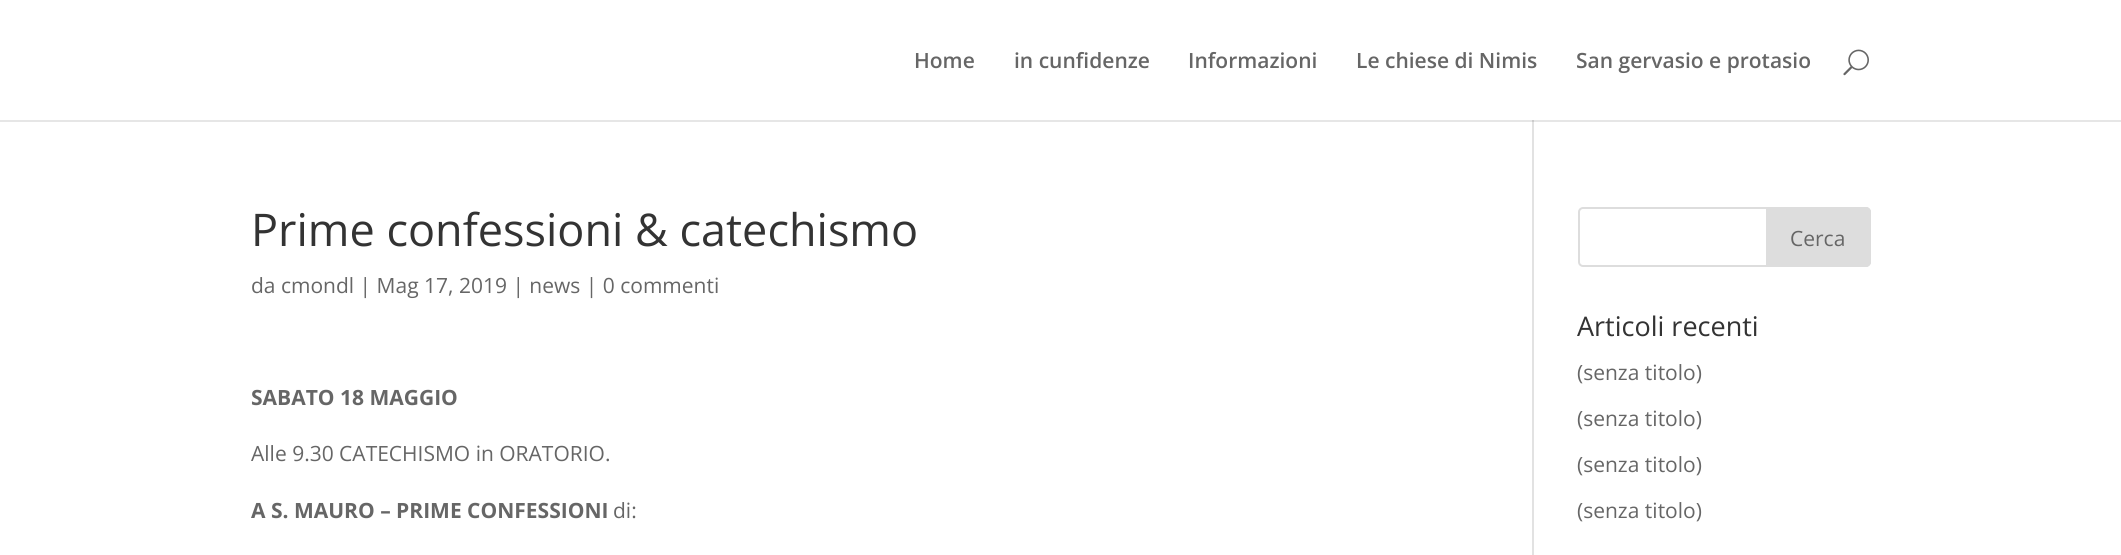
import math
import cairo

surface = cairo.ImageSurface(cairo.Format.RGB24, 2121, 555)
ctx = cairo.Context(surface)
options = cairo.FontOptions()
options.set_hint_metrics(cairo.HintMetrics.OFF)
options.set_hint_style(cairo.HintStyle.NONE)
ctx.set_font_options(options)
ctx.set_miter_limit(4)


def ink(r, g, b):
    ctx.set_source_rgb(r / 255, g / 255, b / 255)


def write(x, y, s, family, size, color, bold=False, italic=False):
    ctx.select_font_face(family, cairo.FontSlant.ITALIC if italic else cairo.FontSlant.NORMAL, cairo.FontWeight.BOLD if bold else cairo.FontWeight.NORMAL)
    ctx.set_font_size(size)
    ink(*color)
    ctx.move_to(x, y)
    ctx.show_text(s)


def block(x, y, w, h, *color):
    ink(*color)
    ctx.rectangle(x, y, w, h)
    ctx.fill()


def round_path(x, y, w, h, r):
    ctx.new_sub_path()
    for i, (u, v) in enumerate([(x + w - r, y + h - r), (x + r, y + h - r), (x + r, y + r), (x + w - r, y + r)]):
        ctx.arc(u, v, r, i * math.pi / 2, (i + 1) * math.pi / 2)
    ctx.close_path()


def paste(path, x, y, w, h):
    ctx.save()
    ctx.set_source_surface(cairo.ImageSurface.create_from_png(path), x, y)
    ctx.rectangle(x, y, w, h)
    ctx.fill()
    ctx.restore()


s1 = dict(family="Open Sans SemiBold", size=21, color=(102, 102, 102))
s2 = dict(family="Open Sans", size=45, color=(51, 51, 51))
s3 = dict(family="Open Sans", size=21, color=(102, 102, 102))
s4 = dict(family="Open Sans", size=21, color=(102, 102, 102), bold=True)
s5 = dict(family="Open Sans", size=27, color=(51, 51, 51))

ink(255, 255, 255)
ctx.paint()
block(0, 120, 2121, 2, 230, 230, 230)
write(914, 68, "Home", **s1)
write(1014, 68, "in cunfidenze", **s1)
write(1188, 68, "Informazioni", **s1)
write(1356, 68, "Le chiese di Nimis", **s1)
write(1576, 68, "San gervasio e protasio", **s1)
paste("pic1.png", 1843, 49, 26, 27)
block(1532, 120, 2, 435, 226, 226, 226)
block(1532, 120, 2, 2, 203, 203, 203)
write(251, 246, "Prime confessioni & catechismo", **s2)
write(251, 293, "da cmondl | Mag 17, 2019 | news | 0 commenti", **s3)
write(251, 405, "SABATO 18 MAGGIO", **s4)
write(251, 461, "Alle 9.30 CATECHISMO in ORATORIO.", **s3)
write(251, 518, "A S. MAURO – PRIME CONFESSIONI", **s4)
write(613, 518, "di:", **s3)
round_path(1579, 208, 291, 58, 4)
ink(221, 221, 221)
ctx.stroke()
ctx.new_path()
ctx.move_to(1767, 208)
ctx.line_to(1866, 208)
ctx.curve_to(1868, 208, 1870, 210, 1870, 212)
ctx.line_to(1870, 262)
ctx.curve_to(1870, 264, 1868, 266, 1866, 266)
ctx.line_to(1767, 266)
ctx.close_path()
ctx.fill_preserve()
ctx.stroke()
write(1790, 246, "Cerca", **s3)
write(1577, 336, "Articoli recenti", **s5)
write(1577, 380, "(senza titolo)", **s3)
write(1577, 426, "(senza titolo)", **s3)
write(1577, 472, "(senza titolo)", **s3)
write(1577, 518, "(senza titolo)", **s3)
surface.write_to_png("screenshot.png")
